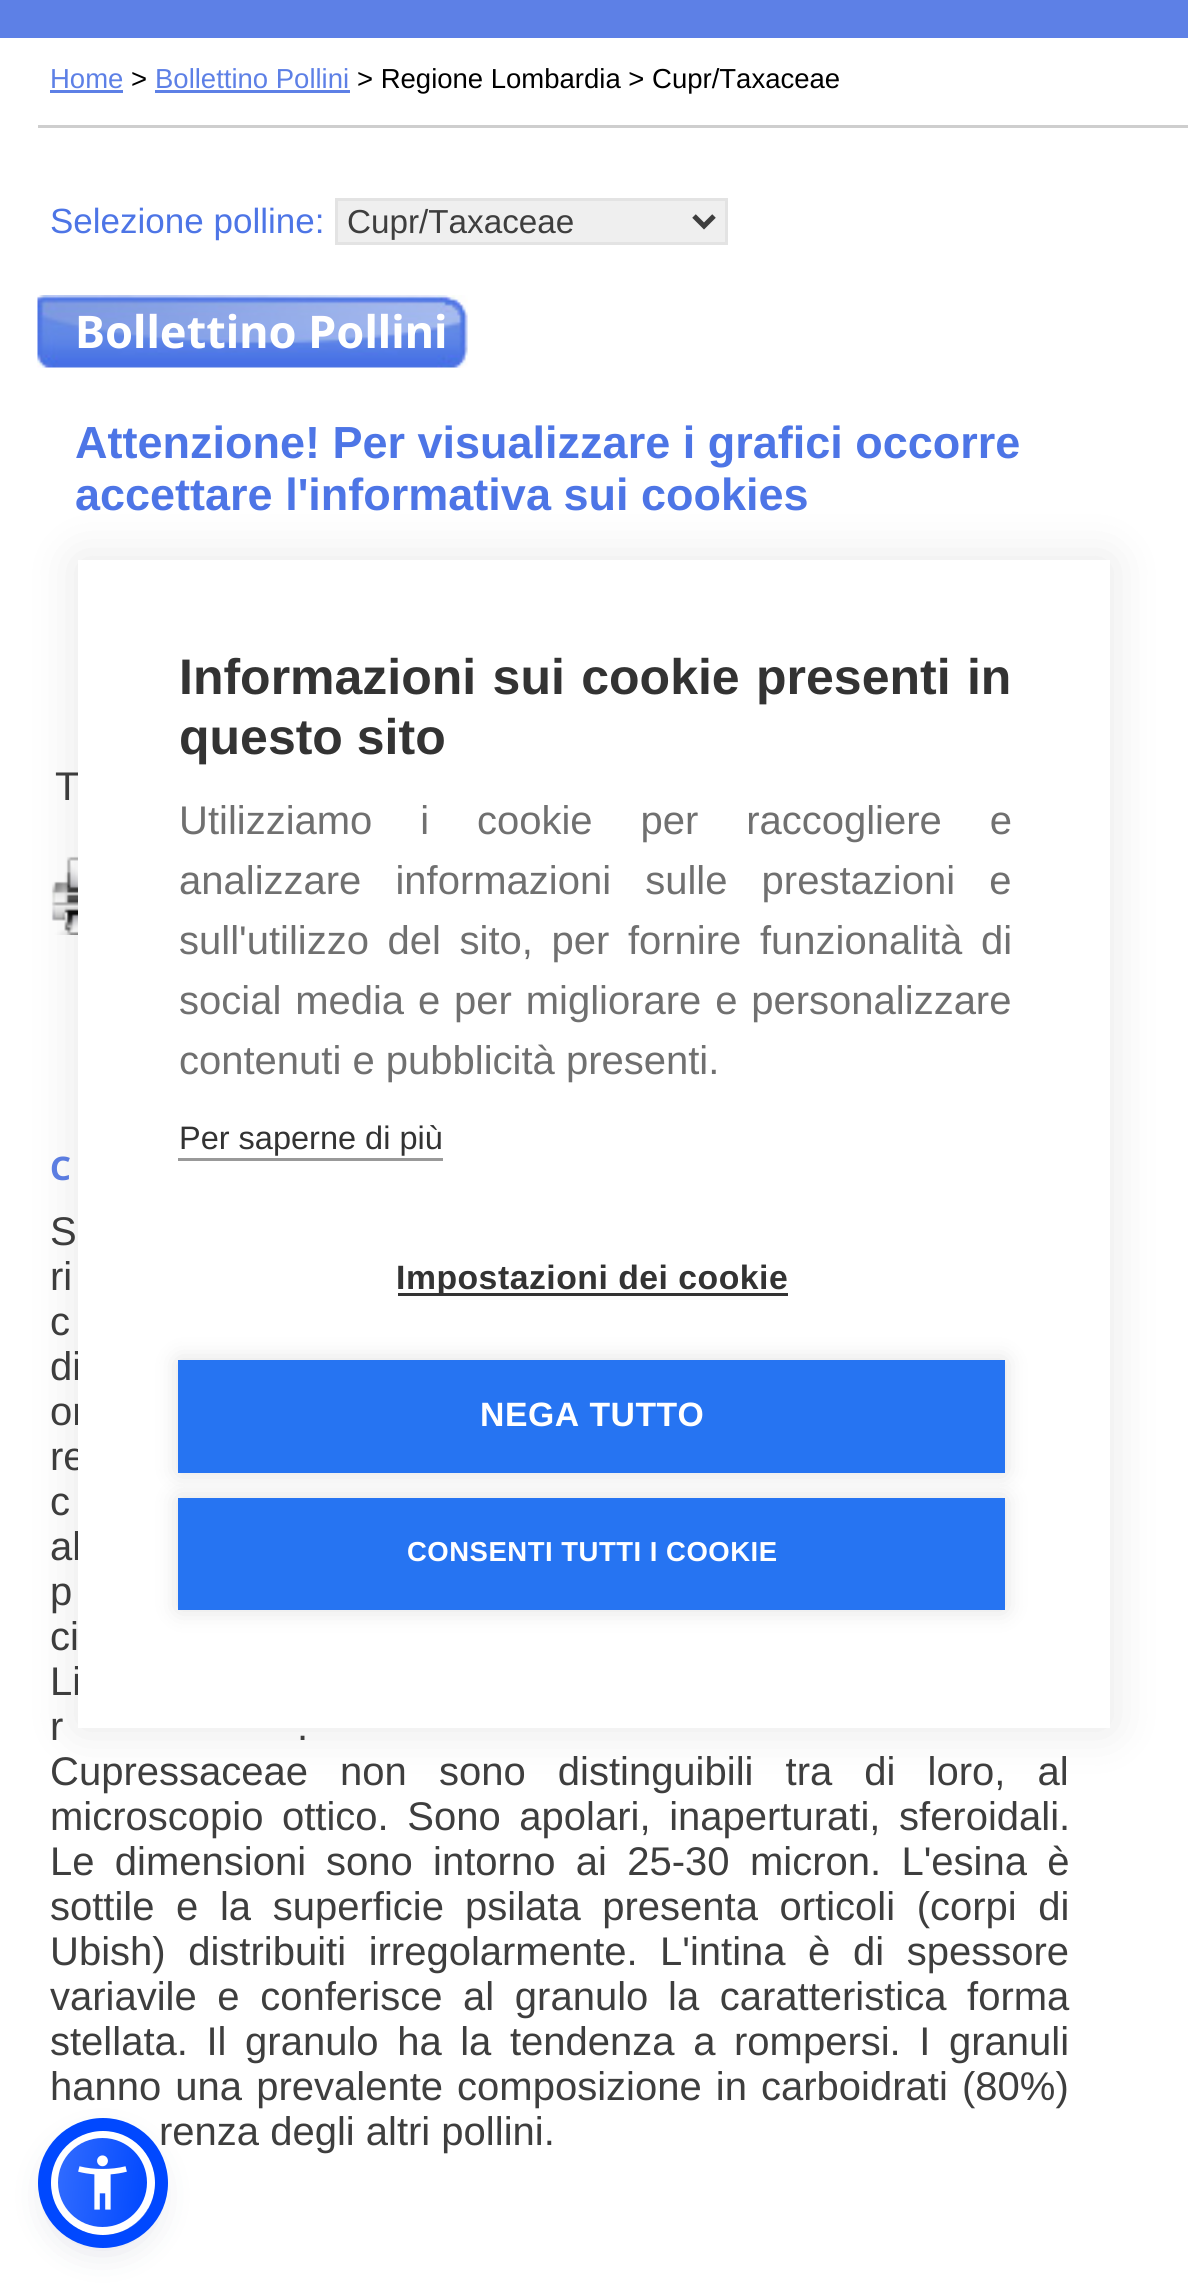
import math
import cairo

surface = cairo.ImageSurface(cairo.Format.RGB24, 1188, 2285)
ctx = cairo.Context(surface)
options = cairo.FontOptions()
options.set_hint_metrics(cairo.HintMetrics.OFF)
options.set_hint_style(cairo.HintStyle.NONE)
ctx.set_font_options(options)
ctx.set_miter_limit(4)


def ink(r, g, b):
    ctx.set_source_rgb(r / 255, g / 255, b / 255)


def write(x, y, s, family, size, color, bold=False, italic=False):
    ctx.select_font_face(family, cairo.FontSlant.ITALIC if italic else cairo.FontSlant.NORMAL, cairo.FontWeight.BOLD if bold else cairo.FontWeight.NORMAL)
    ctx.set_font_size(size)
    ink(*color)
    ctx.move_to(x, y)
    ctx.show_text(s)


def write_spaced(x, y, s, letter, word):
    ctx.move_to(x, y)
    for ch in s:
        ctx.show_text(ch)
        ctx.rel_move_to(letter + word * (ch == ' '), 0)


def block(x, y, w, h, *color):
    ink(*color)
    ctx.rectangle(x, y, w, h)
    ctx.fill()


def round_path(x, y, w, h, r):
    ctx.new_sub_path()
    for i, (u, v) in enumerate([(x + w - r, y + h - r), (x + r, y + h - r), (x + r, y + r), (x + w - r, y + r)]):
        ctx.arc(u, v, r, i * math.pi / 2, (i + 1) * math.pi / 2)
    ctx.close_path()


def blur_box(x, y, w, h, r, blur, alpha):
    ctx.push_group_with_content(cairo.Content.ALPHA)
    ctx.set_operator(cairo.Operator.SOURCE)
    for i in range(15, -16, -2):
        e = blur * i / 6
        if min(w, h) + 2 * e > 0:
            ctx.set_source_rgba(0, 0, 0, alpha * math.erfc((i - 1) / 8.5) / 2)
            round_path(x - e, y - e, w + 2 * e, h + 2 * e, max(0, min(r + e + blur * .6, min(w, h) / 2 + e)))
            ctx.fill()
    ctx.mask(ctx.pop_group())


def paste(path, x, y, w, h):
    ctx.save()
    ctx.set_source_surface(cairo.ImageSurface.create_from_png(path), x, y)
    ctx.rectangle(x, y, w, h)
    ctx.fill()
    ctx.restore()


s1 = dict(family="Liberation Sans", size=27.5, color=(93, 128, 230))
s2 = dict(family="Liberation Sans", size=27.5, color=(0, 0, 0))
s3 = dict(family="Liberation Sans", size=35, color=(77, 117, 230))
s4 = dict(family="Liberation Sans", size=33.25, color=(62, 62, 62))
s5 = dict(family="Noto Sans", size=45, color=(255, 255, 255), bold=True)
s6 = dict(family="Liberation Sans", size=45, color=(77, 117, 230), bold=True)
s7 = dict(family="Liberation Sans", size=40, color=(62, 62, 62))
s8 = dict(family="Noto Sans", size=32.5, color=(93, 128, 230), bold=True)
s9 = dict(family="Liberation Sans", size=50, color=(51, 51, 51), bold=True)
s10 = dict(family="Liberation Sans", size=40, color=(112, 112, 112))
s11 = dict(family="Liberation Sans", size=32.5, color=(51, 51, 51))

ink(255, 255, 255)
ctx.paint()
block(0, 0, 1188, 38, 93, 128, 230)
block(38, 125, 1150, 3, 206, 206, 206)
write(50, 88, "Home", **s1)
block(50, 90, 73, 3, 93, 128, 230)
write(131, 88, ">", **s2)
write(155, 88, "Bollettino Pollini", **s1)
block(155, 90, 195, 3, 93, 128, 230)
write(357, 88, "> Regione Lombardia > Cupr/Taxaceae", **s2)
write(50, 233, "Selezione polline:", **s3)
ink(239, 239, 239)
ctx.rectangle(336.5, 199.5, 390, 44)
ctx.fill_preserve()
ink(227, 227, 227)
ctx.set_line_width(3)
ctx.stroke()
ctx.new_path()
ctx.move_to(694, 216)
ctx.line_to(704, 226)
ctx.line_to(714, 216)
ink(62, 62, 62)
ctx.set_line_width(5)
ctx.stroke()
write(347, 233, "Cupr/Taxaceae", **s4)
paste("pic1.png", 37, 295, 431, 73)
write(75, 348, "Bollettino Pollini", **s5)
write(75, 458, "Attenzione! Per visualizzare i grafici occorre", **s6)
write(75, 510, "accettare l'informativa sui cookies", **s6)
write(55, 800, "T", **s7)
paste("pic2.png", 51, 856, 27, 79)
write(50, 1180, "C", **s8)
write(50, 1245, "S", **s7)
write(50, 1290, "ri", **s7)
write_spaced(50, 1335, "c", 0, 6)
write_spaced(50, 1380, "di", 0, 28)
write_spaced(50, 1425, "or", 0, 16)
write_spaced(50, 1470, "re", 0, 17)
write_spaced(50, 1515, "c", 0, 25)
write(50, 1560, "al", **s7)
write_spaced(50, 1605, "p", 0, 6)
write_spaced(50, 1650, "ci", 0, 5)
write_spaced(50, 1695, "Li", 0, 42)
write_spaced(50, 1740, "r", 0, 9)
write_spaced(297, 1740, ".", 0, 9)
write_spaced(50, 1785, "Cupressaceae non sono distinguibili tra di loro, al", 0, 21)
write(50, 1830, "microscopio", **s7)
write_spaced(282, 1830, "ottico. Sono apolari, inaperturati, sferoidali.", 0, 7.5)
write_spaced(50, 1875, "Le dimensioni", 0, 9.25)
write_spaced(326, 1875, "sono intorno ai 25-30 micron. L'esina è", 0, 9.25)
write_spaced(50, 1920, "sottile e la superficie", 0, 10.5)
write_spaced(465, 1920, "psilata presenta orticoli (corpi di", 0, 10.5)
write_spaced(50, 1965, "Ubish) distribuiti irregolarmente.", 0, 11.5)
write_spaced(660, 1965, "L'intina è di spessore", 0, 11.5)
write_spaced(50, 2010, "variavile e conferisce al granulo", 0, 9.5)
write_spaced(668, 2010, "la caratteristica forma", 0, 9.5)
write_spaced(50, 2055, "stellata. Il granulo ha la tendenza a", 0, 7.5)
write_spaced(734, 2055, "rompersi. I granuli", 0, 7.5)
write_spaced(50, 2100, "hanno una prevalente composizione in carboidrati", 0, 3)
write(962, 2100, "(80%)", **s7)
write(159, 2145, "renza degli altri pollini.", **s7)
ink(0, 0, 0)
blur_box(78, 560, 1032, 1168, 0, 25, 0.1)
block(78, 560, 1032, 1168, 255, 255, 255)
ctx.select_font_face("Liberation Sans", cairo.FontSlant.NORMAL, cairo.FontWeight.BOLD)
ctx.set_font_size(50)
ink(51, 51, 51)
write_spaced(179, 694, "Informazioni sui cookie presenti in", 0, 2.5)
write(179, 754, "questo sito", **s9)
ctx.select_font_face("Liberation Sans")
ctx.set_font_size(40)
ink(112, 112, 112)
write_spaced(179, 834, "Utilizziamo i cookie per raccogliere e", 0, 36.75)
write_spaced(179, 894, "analizzare informazioni sulle prestazioni e", 0, 23)
write_spaced(179, 954, "sull'utilizzo del sito, per fornire funzionalità di", 0, 7.5)
write_spaced(179, 1014, "social media e per migliorare e personalizzare", 0, 2.75)
write(179, 1074, "contenuti e pubblicità presenti.", **s10)
write(179, 1149, "Per saperne di più", **s11)
block(178, 1158, 265, 3, 153, 153, 153)
block(398, 1293, 390, 3, 51, 51, 51)
ctx.select_font_face("Liberation Sans", cairo.FontSlant.NORMAL, cairo.FontWeight.BOLD)
ctx.set_font_size(33.75)
write_spaced(396, 1289, "Impostazioni dei cookie", 0.5, 0)
ink(0, 0, 0)
blur_box(178, 1360, 827, 113, 0, 12.5, 0.12)
block(178, 1360, 827, 113, 38, 116, 242)
ink(255, 255, 255)
write_spaced(480, 1426, "NEGA TUTTO", 0.5, 0)
ink(0, 0, 0)
blur_box(178, 1498, 827, 112, 0, 12.5, 0.12)
block(178, 1498, 827, 112, 38, 116, 242)
ctx.set_font_size(27.5)
ink(255, 255, 255)
write_spaced(407, 1561, "CONSENTI TUTTI I COOKIE", 0.5, 0)
ink(93, 100, 148)
blur_box(50, 2135, 105, 105, 52.5, 5, 0.2)
ink(37, 44, 97)
blur_box(50, 2143, 105, 105, 52.5, 19, 0.15)
ctx.save()
round_path(50, 2130, 105, 105, 52.5)
ctx.clip()
gradient = cairo.LinearGradient(53, 2177, 152, 2188)
gradient.add_color_stop_rgba(0, 0.196, 0.424, 1, 1)
gradient.add_color_stop_rgba(1, 0, 0.282, 1, 1)
ctx.set_source(gradient)
ctx.rectangle(58, 2138, 90, 90)
ctx.fill()
ctx.restore()
ctx.arc(102.5, 2182.5, 48.5, 0, 2 * math.pi)
ink(255, 255, 255)
ctx.set_line_width(8)
ctx.stroke()
ctx.arc(103, 2183, 58.5, 0, 2 * math.pi)
ink(0, 72, 255)
ctx.set_line_width(13)
ctx.stroke()
paste("pic3.png", 78, 2155, 49, 55)
surface.write_to_png("screenshot.png")
